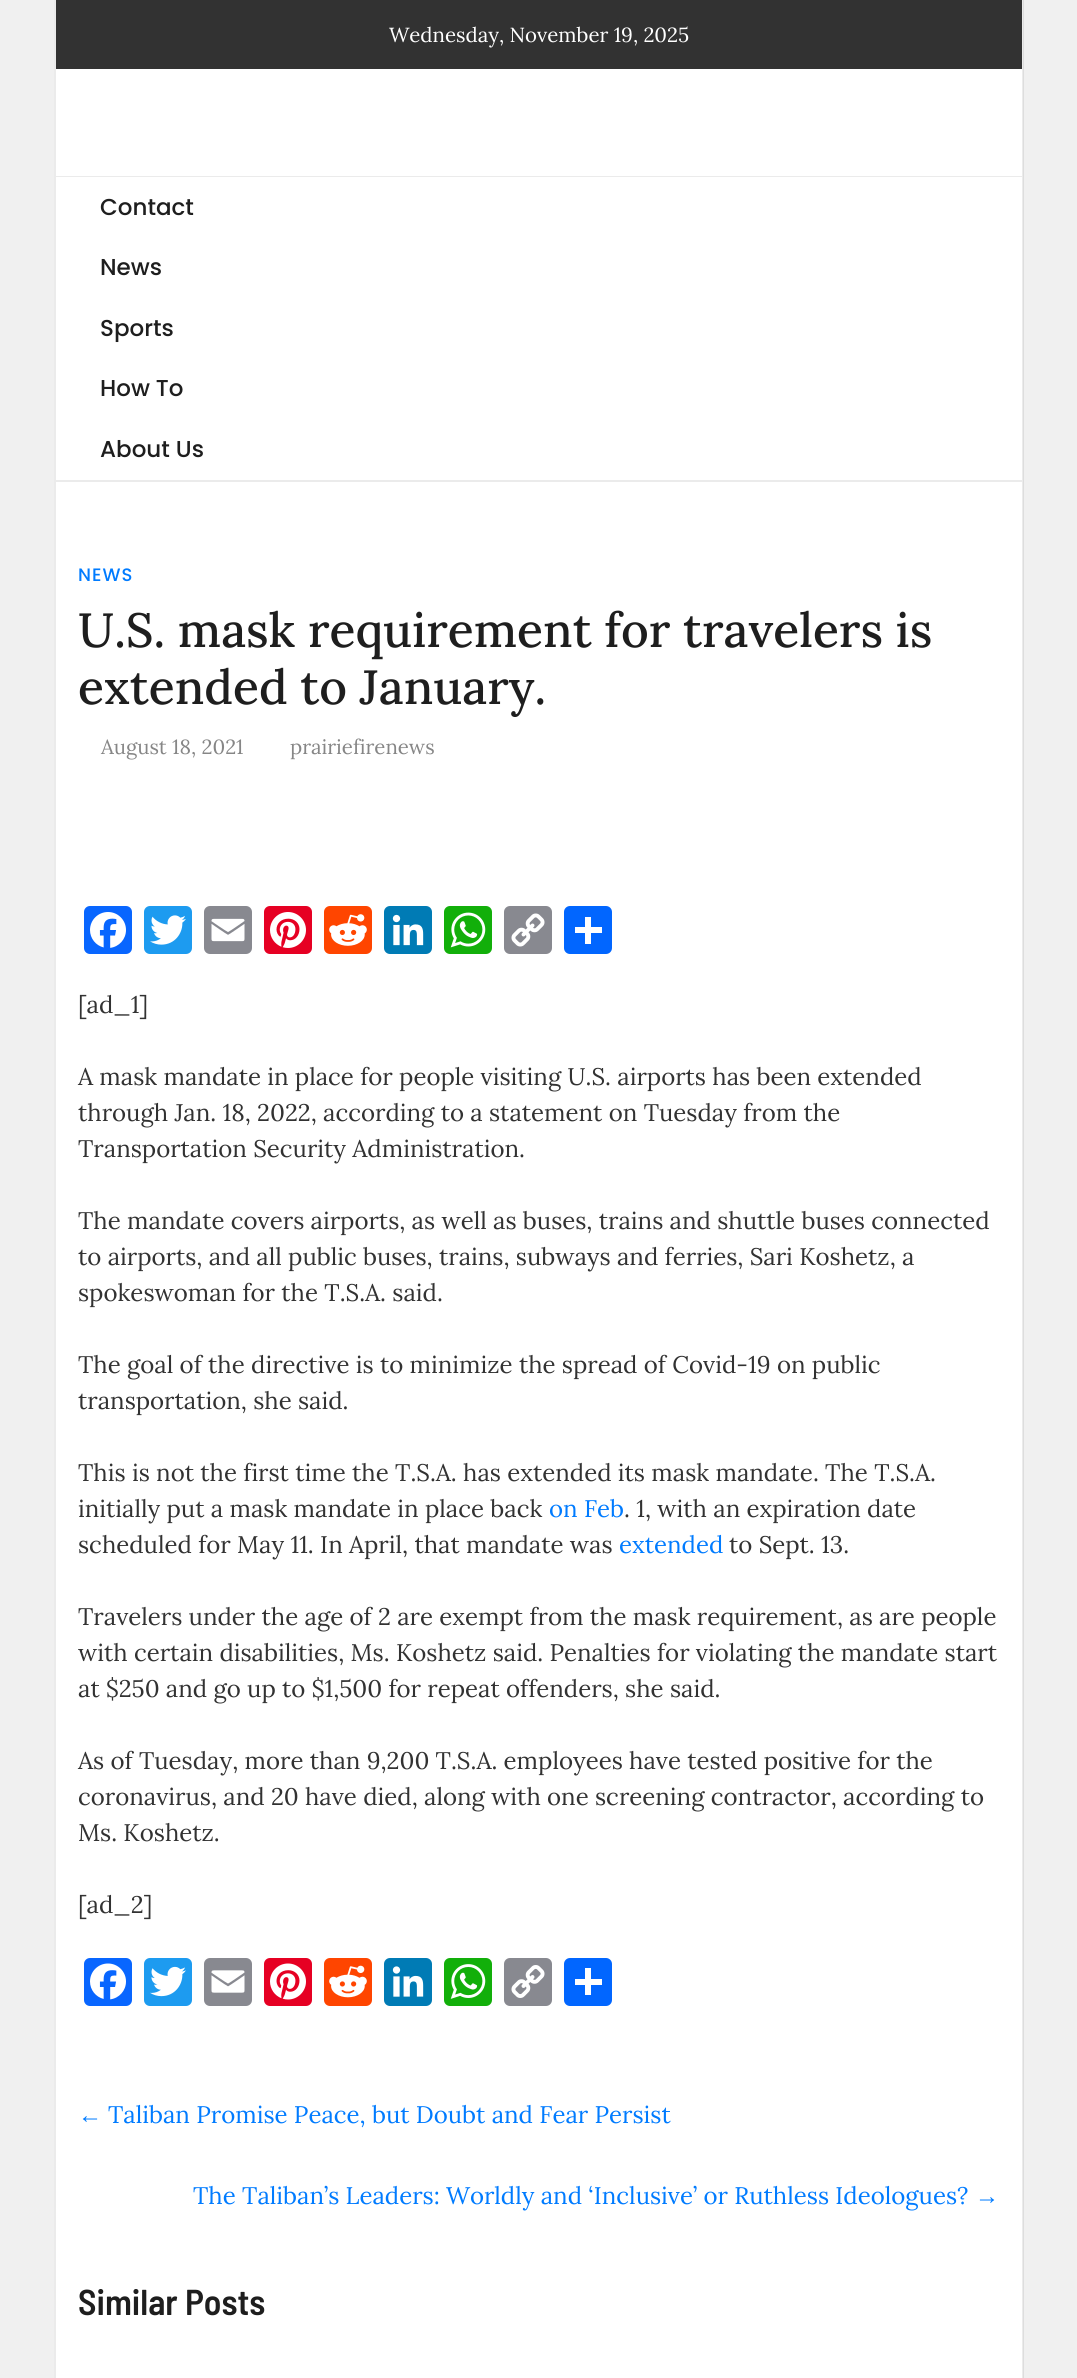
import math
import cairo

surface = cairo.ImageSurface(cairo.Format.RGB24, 1077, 2378)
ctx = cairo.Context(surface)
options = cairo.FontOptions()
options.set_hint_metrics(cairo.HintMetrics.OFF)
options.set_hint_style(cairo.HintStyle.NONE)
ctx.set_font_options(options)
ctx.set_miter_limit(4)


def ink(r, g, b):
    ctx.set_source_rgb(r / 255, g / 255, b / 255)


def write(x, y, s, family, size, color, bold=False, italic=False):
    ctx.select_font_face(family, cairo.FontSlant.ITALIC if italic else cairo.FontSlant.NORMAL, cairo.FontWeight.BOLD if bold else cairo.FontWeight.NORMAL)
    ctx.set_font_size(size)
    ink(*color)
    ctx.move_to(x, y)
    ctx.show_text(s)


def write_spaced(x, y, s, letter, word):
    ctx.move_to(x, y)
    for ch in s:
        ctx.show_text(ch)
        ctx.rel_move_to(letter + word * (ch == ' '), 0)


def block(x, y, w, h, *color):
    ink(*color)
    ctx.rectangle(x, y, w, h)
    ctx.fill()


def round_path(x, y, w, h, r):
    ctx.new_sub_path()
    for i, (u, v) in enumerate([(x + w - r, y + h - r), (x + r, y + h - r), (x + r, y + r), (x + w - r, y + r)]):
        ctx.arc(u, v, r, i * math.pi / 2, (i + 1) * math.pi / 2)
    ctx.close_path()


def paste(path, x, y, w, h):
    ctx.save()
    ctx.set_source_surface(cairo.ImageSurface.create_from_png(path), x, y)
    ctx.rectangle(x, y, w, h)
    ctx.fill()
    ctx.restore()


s1 = dict(family="Lora", size=20.4, color=(255, 255, 255))
s2 = dict(family="Poppins Medium", size=23, color=(30, 30, 30))
s3 = dict(family="Lora Medium", size=48, color=(30, 30, 30))
s4 = dict(family="Lora", size=20.4, color=(134, 134, 134))
s5 = dict(family="Lora", size=24, color=(50, 50, 50))
s6 = dict(family="Lora", size=24, color=(0, 123, 255))
s7 = dict(family="Liberation Serif", size=24, color=(0, 123, 255))
s8 = dict(family="Barlow Semi Condensed SemiBold", size=36, color=(30, 30, 30))

ink(240, 240, 240)
ctx.paint()
block(1023, 0, 1, 2378, 221, 221, 221)
block(56, 69, 966, 2309, 255, 255, 255)
block(1022, 0, 1, 2378, 235, 235, 235)
block(54, 0, 2, 2378, 235, 235, 235)
block(56, 0, 966, 69, 50, 50, 50)
write(389, 42, "Wednesday, November 19, 2025", **s1)
block(56, 176, 966, 1, 235, 235, 235)
block(56, 480, 966, 2, 235, 235, 235)
write(100, 215, "Contact", **s2)
write(100, 275, "News", **s2)
write(100, 336, "Sports", **s2)
write(100, 396, "How To", **s2)
write(100, 457, "About Us", **s2)
ctx.set_font_size(18)
ink(0, 123, 255)
write_spaced(78, 581, "NEWS", 1, 0)
write(78, 647, "U.S. mask requirement for travelers is", **s3)
write(78, 704, "extended to January.", **s3)
write(101, 754, "August 18, 2021", **s4)
write(290, 754, "prairiefirenews", **s4)
ink(8, 102, 255)
round_path(84, 906, 48, 48, 6)
ctx.fill()
paste("pic1.png", 90, 912, 36, 36)
ink(29, 155, 240)
round_path(144, 906, 48, 48, 6)
ctx.fill()
paste("pic2.png", 150, 915, 36, 30)
ink(136, 137, 144)
round_path(204, 906, 48, 48, 6)
ctx.fill()
paste("pic3.png", 211, 918, 34, 24)
ink(230, 0, 35)
round_path(264, 906, 48, 48, 6)
ctx.fill()
paste("pic4.png", 270, 912, 36, 36)
ink(255, 69, 0)
round_path(324, 906, 48, 48, 6)
ctx.fill()
paste("pic5.png", 329, 914, 38, 32)
ink(0, 123, 181)
round_path(384, 906, 48, 48, 6)
ctx.fill()
paste("pic6.png", 392, 914, 32, 32)
ink(18, 175, 10)
round_path(444, 906, 48, 48, 6)
ctx.fill()
paste("pic7.png", 450, 912, 36, 36)
ink(136, 137, 144)
round_path(504, 906, 48, 48, 6)
ctx.fill()
paste("pic8.png", 511, 913, 34, 34)
ink(1, 102, 255)
round_path(564, 906, 48, 48, 6)
ctx.fill()
block(585, 917, 6, 27, 255, 255, 255)
block(575, 927, 27, 6, 255, 255, 255)
write(78, 1013, "[ad_1]", **s5)
write(78, 1085, "A mask mandate in place for people visiting U.S. airports has been extended", **s5)
write(78, 1121, "through Jan. 18, 2022, according to a statement on Tuesday from the", **s5)
write(78, 1157, "Transportation Security Administration.", **s5)
write(78, 1229, "The mandate covers airports, as well as buses, trains and shuttle buses connected", **s5)
write(78, 1265, "to airports, and all public buses, trains, subways and ferries, Sari Koshetz, a", **s5)
write(78, 1301, "spokeswoman for the T.S.A. said.", **s5)
write(78, 1373, "The goal of the directive is to minimize the spread of Covid-19 on public", **s5)
write(78, 1409, "transportation, she said.", **s5)
write(78, 1481, "This is not the first time the T.S.A. has extended its mask mandate. The T.S.A.", **s5)
write(78, 1517, "initially put a mask mandate in place back", **s5)
write(549, 1517, "on Feb", **s6)
write(624, 1517, ". 1, with an expiration date", **s5)
write(78, 1553, "scheduled for May 11. In April, that mandate was", **s5)
write(619, 1553, "extended", **s6)
write(729, 1553, "to Sept. 13.", **s5)
write(78, 1625, "Travelers under the age of 2 are exempt from the mask requirement, as are people", **s5)
write(78, 1661, "with certain disabilities, Ms. Koshetz said. Penalties for violating the mandate start", **s5)
write(78, 1697, "at $250 and go up to $1,500 for repeat offenders, she said.", **s5)
write(78, 1769, "As of Tuesday, more than 9,200 T.S.A. employees have tested positive for the", **s5)
write(78, 1805, "coronavirus, and 20 have died, along with one screening contractor, according to", **s5)
write(78, 1841, "Ms. Koshetz.", **s5)
write(78, 1913, "[ad_2]", **s5)
ink(8, 102, 255)
round_path(84, 1958, 48, 48, 6)
ctx.fill()
paste("pic9.png", 90, 1963, 36, 37)
ink(29, 155, 240)
round_path(144, 1958, 48, 48, 6)
ctx.fill()
paste("pic10.png", 150, 1966, 36, 31)
ink(136, 137, 144)
round_path(204, 1958, 48, 48, 6)
ctx.fill()
paste("pic11.png", 211, 1970, 34, 23)
ink(230, 0, 35)
round_path(264, 1958, 48, 48, 6)
ctx.fill()
paste("pic12.png", 270, 1963, 36, 37)
ink(255, 69, 0)
round_path(324, 1958, 48, 48, 6)
ctx.fill()
paste("pic13.png", 329, 1965, 38, 33)
ink(0, 123, 181)
round_path(384, 1958, 48, 48, 6)
ctx.fill()
paste("pic14.png", 392, 1966, 32, 31)
ink(18, 175, 10)
round_path(444, 1958, 48, 48, 6)
ctx.fill()
paste("pic15.png", 450, 1964, 36, 35)
ink(136, 137, 144)
round_path(504, 1958, 48, 48, 6)
ctx.fill()
paste("pic16.png", 511, 1965, 34, 33)
ink(1, 102, 255)
round_path(564, 1958, 48, 48, 6)
ctx.fill()
block(585, 1968, 6, 27, 255, 255, 255)
block(575, 1979, 27, 6, 255, 255, 255)
write(78, 2123, "←", **s7)
write(108, 2123, "Taliban Promise Peace, but Doubt and Fear Persist", **s6)
write(193, 2204, "The Taliban’s Leaders: Worldly and ‘Inclusive’ or Ruthless Ideologues?", **s6)
write(975, 2204, "→", **s7)
write(78, 2315, "Similar Posts", **s8)
surface.write_to_png("screenshot.png")
